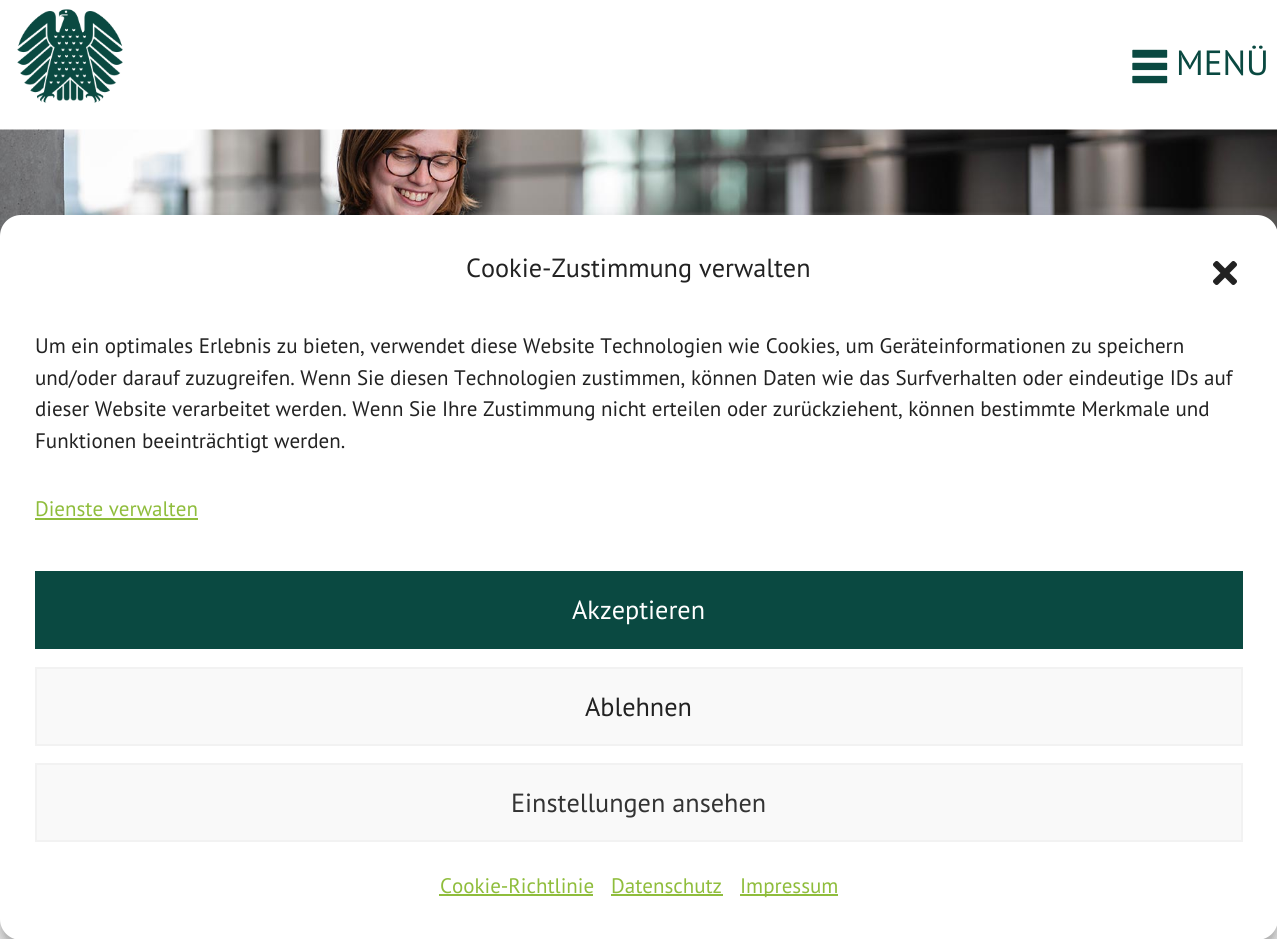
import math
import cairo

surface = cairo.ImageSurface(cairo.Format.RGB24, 1277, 939)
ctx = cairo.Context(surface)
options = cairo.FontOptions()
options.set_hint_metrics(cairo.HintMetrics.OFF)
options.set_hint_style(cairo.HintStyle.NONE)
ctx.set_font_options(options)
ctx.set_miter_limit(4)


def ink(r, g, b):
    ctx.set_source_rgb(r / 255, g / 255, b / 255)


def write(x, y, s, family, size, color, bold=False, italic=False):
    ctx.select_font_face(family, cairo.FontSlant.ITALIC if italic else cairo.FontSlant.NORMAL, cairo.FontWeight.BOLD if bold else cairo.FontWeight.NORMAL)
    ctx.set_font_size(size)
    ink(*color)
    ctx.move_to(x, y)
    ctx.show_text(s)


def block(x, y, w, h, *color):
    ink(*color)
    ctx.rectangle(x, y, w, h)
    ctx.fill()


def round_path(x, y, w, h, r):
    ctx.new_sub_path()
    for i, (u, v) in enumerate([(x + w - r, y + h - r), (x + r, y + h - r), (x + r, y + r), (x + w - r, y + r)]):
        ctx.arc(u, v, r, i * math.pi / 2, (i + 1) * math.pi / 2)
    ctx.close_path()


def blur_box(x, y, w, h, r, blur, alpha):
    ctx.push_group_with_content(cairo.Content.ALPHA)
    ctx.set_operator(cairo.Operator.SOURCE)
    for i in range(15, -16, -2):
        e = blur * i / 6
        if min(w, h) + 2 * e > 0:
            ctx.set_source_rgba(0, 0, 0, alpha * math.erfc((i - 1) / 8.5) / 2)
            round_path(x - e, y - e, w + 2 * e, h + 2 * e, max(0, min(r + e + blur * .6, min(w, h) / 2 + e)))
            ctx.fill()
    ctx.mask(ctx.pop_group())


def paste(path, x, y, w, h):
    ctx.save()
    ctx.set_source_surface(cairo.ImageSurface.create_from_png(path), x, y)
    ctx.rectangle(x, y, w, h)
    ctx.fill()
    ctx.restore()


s1 = dict(family="PT Sans", size=35, color=(10, 73, 65))
s2 = dict(family="PT Sans", size=26.25, color=(34, 34, 34))
s3 = dict(family="PT Sans", size=21, color=(34, 34, 34))
s4 = dict(family="PT Sans", size=21, color=(143, 189, 60))
s5 = dict(family="PT Sans", size=26.25, color=(255, 255, 255))
s6 = dict(family="PT Sans", size=26.25, color=(51, 51, 51))

ink(255, 255, 255)
ctx.paint()
paste("pic1.png", 17, 9, 106, 94)
paste("pic2.png", 1132, 49, 36, 35)
write(1176, 75, "MENÜ", **s1)
paste("pic3.png", 0, 129, 1277, 107)
ink(0, 0, 0)
blur_box(0, 226, 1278, 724, 21, 5, 0.23)
blur_box(0, 233, 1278, 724, 21, 17.5, 0.19)
ink(255, 255, 255)
round_path(0, 215, 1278, 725, 21)
ctx.fill()
write(466, 277, "Cookie-Zustimmung verwalten", **s2)
paste("pic4.png", 1213, 261, 24, 24)
write(35, 353, "Um ein optimales Erlebnis zu bieten, verwendet diese Website Technologien wie Cookies, um Geräteinformationen zu speichern", **s3)
write(35, 385, "und/oder darauf zuzugreifen. Wenn Sie diesen Technologien zustimmen, können Daten wie das Surfverhalten oder eindeutige IDs auf", **s3)
write(35, 416, "dieser Website verarbeitet werden. Wenn Sie Ihre Zustimmung nicht erteilen oder zurückziehent, können bestimmte Merkmale und", **s3)
write(35, 448, "Funktionen beeinträchtigt werden.", **s3)
write(35, 516, "Dienste verwalten", **s4)
block(35, 518, 163, 2, 143, 189, 60)
block(35, 571, 1208, 78, 10, 73, 65)
write(572, 619, "Akzeptieren", **s5)
ink(249, 249, 249)
ctx.rectangle(36, 668, 1206, 77)
ctx.fill_preserve()
ink(242, 242, 242)
ctx.stroke()
write(585, 716, "Ablehnen", **s2)
ink(249, 249, 249)
ctx.rectangle(36, 764, 1206, 77)
ctx.fill_preserve()
ink(242, 242, 242)
ctx.stroke()
write(511, 812, "Einstellungen ansehen", **s6)
write(440, 893, "Cookie-Richtlinie", **s4)
block(439, 894, 154, 2, 143, 189, 60)
write(611, 893, "Datenschutz", **s4)
block(611, 894, 112, 2, 143, 189, 60)
block(740, 894, 98, 2, 143, 189, 60)
write(740, 893, "Impressum", **s4)
surface.write_to_png("screenshot.png")
